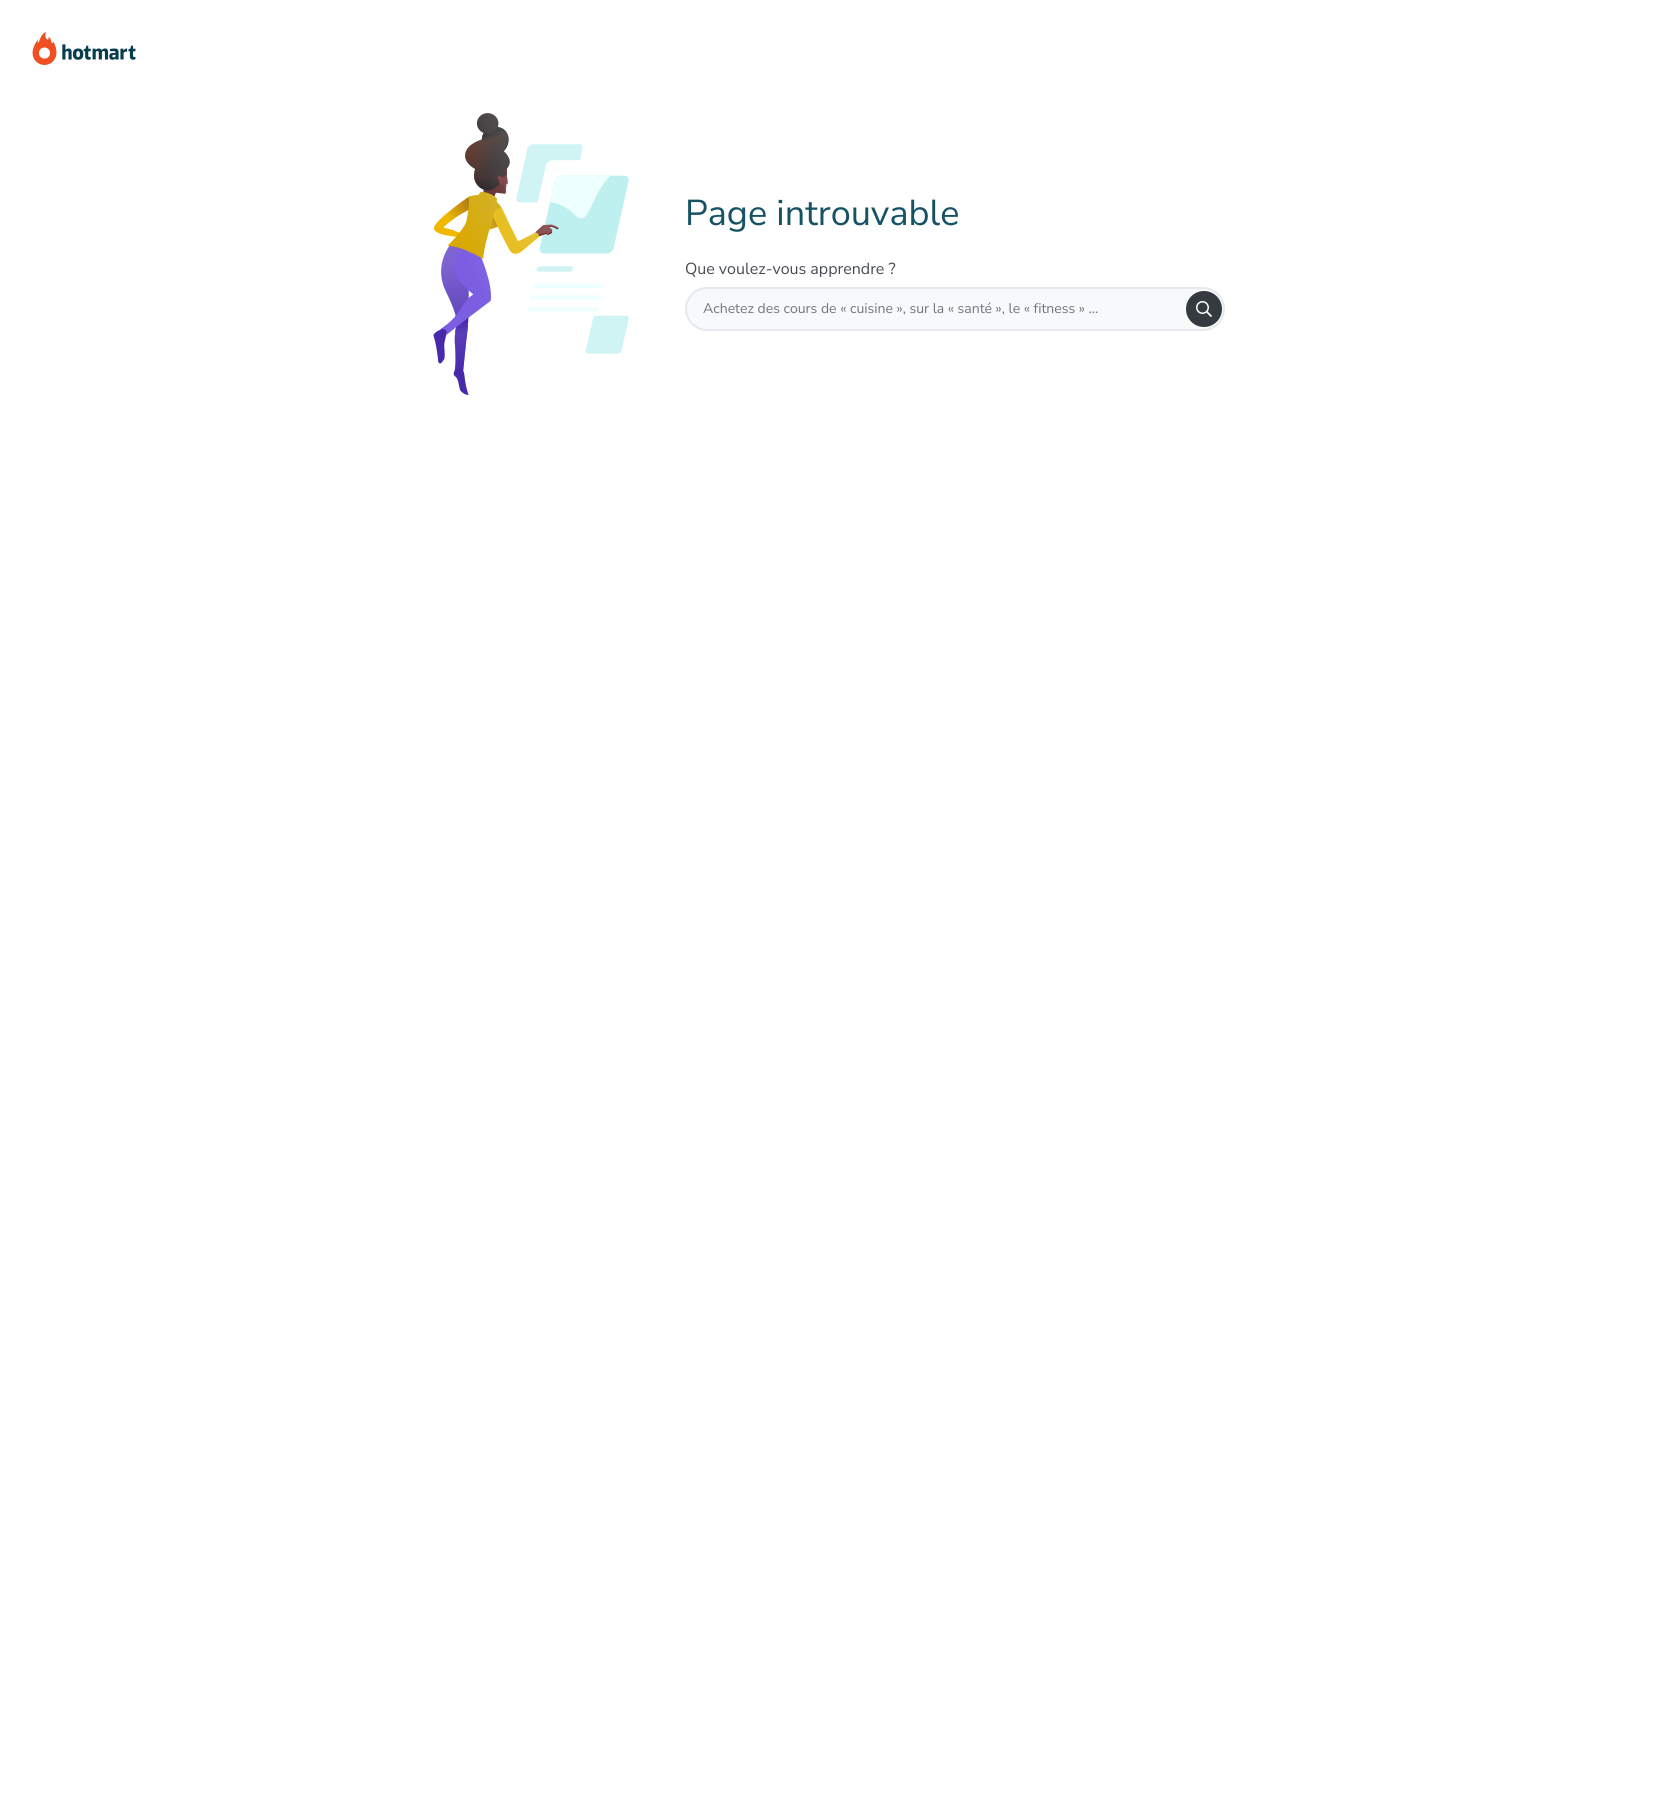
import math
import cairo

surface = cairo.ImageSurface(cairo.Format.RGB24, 1657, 1812)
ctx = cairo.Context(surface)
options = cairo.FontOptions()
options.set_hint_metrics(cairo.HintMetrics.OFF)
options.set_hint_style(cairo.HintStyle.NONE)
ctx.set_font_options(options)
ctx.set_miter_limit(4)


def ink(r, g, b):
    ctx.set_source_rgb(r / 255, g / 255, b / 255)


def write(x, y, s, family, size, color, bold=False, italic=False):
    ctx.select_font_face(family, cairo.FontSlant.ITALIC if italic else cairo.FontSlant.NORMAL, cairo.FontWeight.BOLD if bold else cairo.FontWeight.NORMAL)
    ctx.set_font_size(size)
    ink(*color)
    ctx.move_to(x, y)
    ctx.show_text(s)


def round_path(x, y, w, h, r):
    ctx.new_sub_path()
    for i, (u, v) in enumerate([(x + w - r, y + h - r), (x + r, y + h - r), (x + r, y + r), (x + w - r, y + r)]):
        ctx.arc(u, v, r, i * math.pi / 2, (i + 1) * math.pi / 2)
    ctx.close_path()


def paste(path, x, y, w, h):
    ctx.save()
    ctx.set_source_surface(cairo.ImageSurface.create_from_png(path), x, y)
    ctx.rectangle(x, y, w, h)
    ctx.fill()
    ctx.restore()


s1 = dict(family="Nunito Sans", size=36, color=(21, 83, 100))
s2 = dict(family="Nunito Sans", size=16, color=(70, 75, 82))
s3 = dict(family="Nunito Sans", size=14, color=(112, 119, 128))

ink(255, 255, 255)
ctx.paint()
paste("pic1.png", 32, 32, 104, 33)
paste("pic2.png", 433, 113, 196, 282)
write(685, 225, "Page introuvable", **s1)
write(685, 274, "Que voulez-vous apprendre ?", **s2)
ink(247, 249, 250)
round_path(686, 288, 538, 42, 21)
ctx.fill_preserve()
ink(230, 233, 237)
ctx.stroke()
write(703, 313, "Achetez des cours de « cuisine », sur la « santé », le « fitness » ...", **s3)
ink(53, 58, 64)
ctx.new_path()
ctx.arc(1204, 309, 18, 0, 2 * math.pi)
ctx.fill()
paste("pic3.png", 1196, 301, 16, 16)
surface.write_to_png("screenshot.png")
